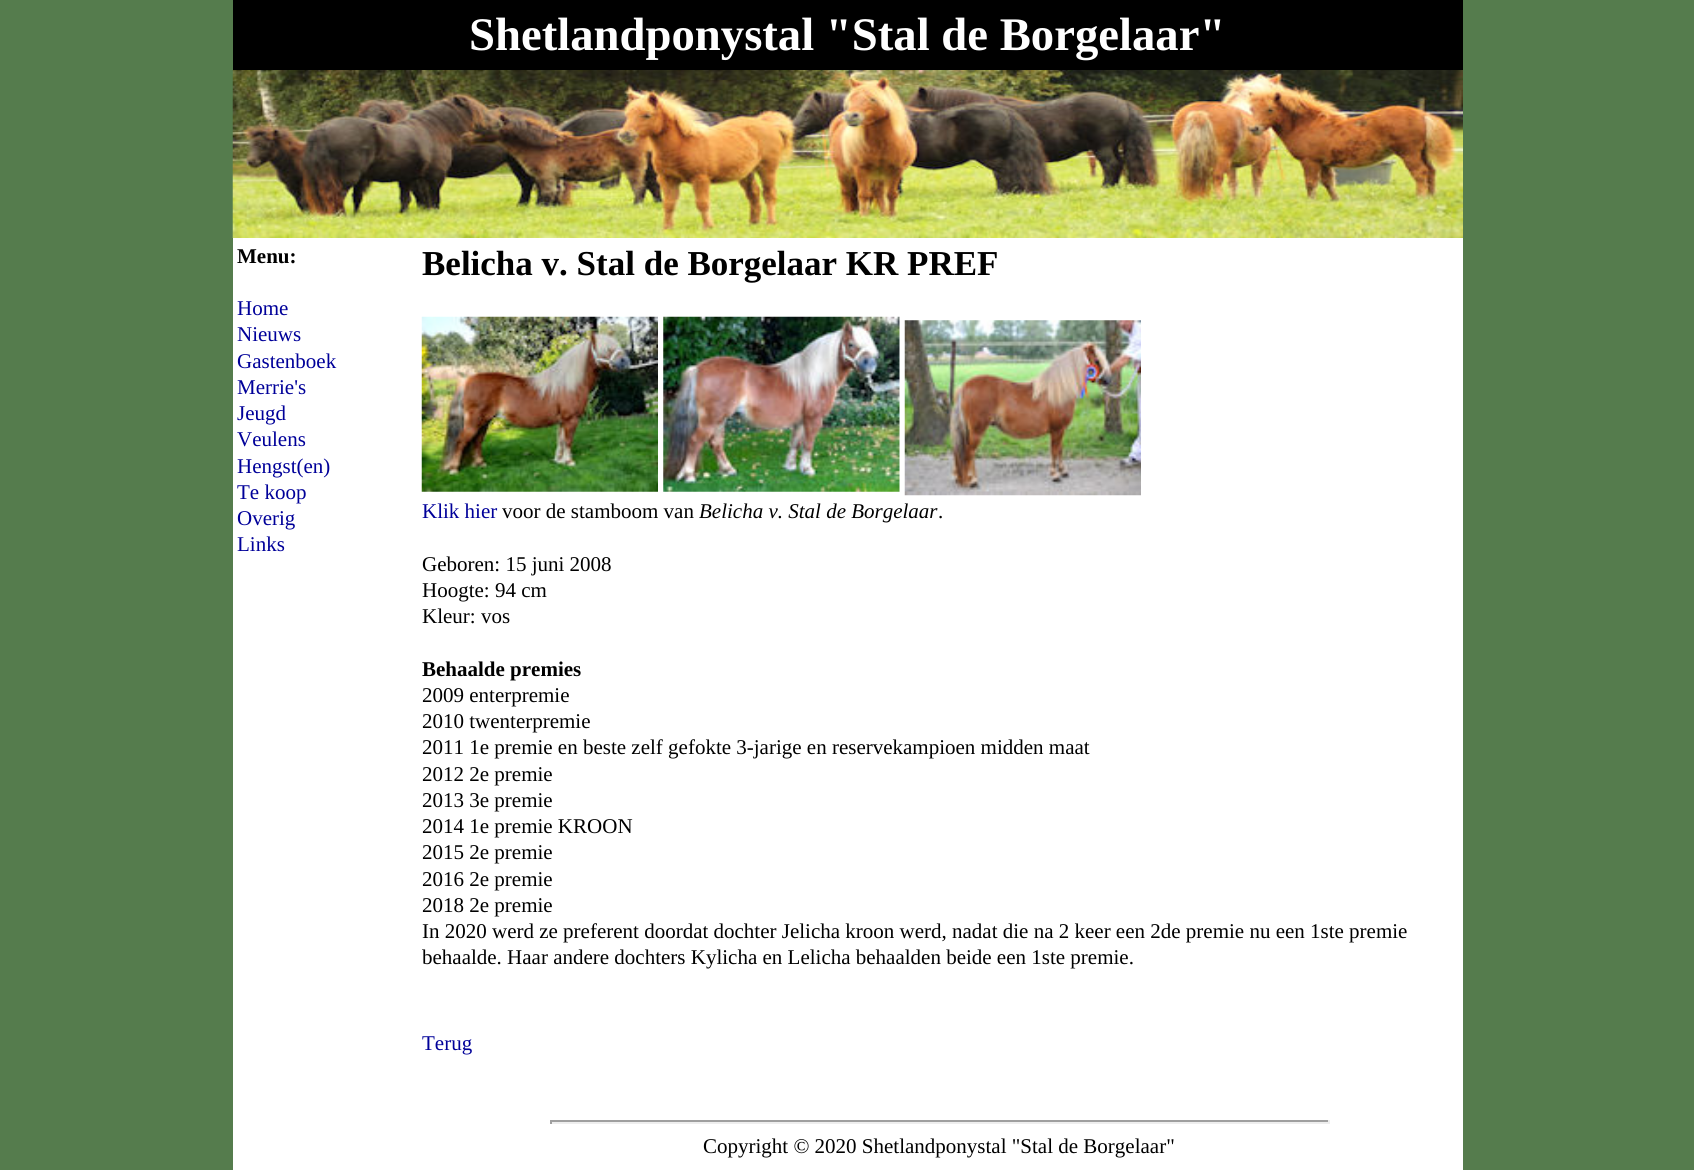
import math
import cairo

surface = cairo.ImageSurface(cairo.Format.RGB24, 1694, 1170)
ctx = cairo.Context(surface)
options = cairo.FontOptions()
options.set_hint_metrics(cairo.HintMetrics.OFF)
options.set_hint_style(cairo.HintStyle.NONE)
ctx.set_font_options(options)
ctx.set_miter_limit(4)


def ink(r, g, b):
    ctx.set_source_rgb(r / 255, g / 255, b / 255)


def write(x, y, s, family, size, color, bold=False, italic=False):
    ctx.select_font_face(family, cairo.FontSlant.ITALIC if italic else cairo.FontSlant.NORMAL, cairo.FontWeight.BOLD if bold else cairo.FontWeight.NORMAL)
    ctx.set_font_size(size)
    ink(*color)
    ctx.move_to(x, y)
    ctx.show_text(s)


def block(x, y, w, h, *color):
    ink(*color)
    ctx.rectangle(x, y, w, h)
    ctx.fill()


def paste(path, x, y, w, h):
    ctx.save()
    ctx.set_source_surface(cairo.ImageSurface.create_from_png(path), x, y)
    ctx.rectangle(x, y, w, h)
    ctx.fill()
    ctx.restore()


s1 = dict(family="Liberation Serif", size=46.7, color=(255, 255, 255), bold=True)
s2 = dict(family="Liberation Serif", size=21, color=(0, 0, 0), bold=True)
s3 = dict(family="Liberation Serif", size=21, color=(0, 0, 153))
s4 = dict(family="Liberation Serif", size=35, color=(0, 0, 0), bold=True)
s5 = dict(family="Liberation Serif", size=21, color=(0, 0, 0))
s6 = dict(family="Liberation Serif", size=21, color=(0, 0, 0), italic=True)

ink(255, 255, 255)
ctx.paint()
block(0, 0, 233, 1170, 85, 124, 77)
block(233, 0, 1230, 70, 0, 0, 0)
write(469, 50, "Shetlandponystal \"Stal de Borgelaar\"", **s1)
paste("pic1.png", 232, 70, 1231, 168)
write(237, 263, "Menu:", **s2)
write(237, 315, "Home", **s3)
write(237, 341, "Nieuws", **s3)
write(237, 368, "Gastenboek", **s3)
write(237, 394, "Merrie's", **s3)
write(237, 420, "Jeugd", **s3)
write(237, 446, "Veulens", **s3)
write(237, 473, "Hengst(en)", **s3)
write(237, 499, "Te koop", **s3)
write(237, 525, "Overig", **s3)
write(237, 551, "Links", **s3)
write(422, 275, "Belicha v. Stal de Borgelaar KR PREF", **s4)
paste("pic2.png", 421, 316, 237, 176)
paste("pic3.png", 663, 316, 237, 176)
paste("pic4.png", 904, 320, 237, 176)
write(422, 518, "Klik hier", **s3)
write(502, 518, "voor de stamboom van", **s5)
write(699, 518, "Belicha v. Stal de Borgelaar", **s6)
write(938, 518, ".", **s5)
write(422, 571, "Geboren: 15 juni 2008", **s5)
write(422, 597, "Hoogte: 94 cm", **s5)
write(422, 623, "Kleur: vos", **s5)
write(422, 676, "Behaalde premies", **s2)
write(422, 702, "2009 enterpremie", **s5)
write(422, 728, "2010 twenterpremie", **s5)
write(422, 754, "2011 1e premie en beste zelf gefokte 3-jarige en reservekampioen midden maat", **s5)
write(422, 781, "2012 2e premie", **s5)
write(422, 807, "2013 3e premie", **s5)
write(422, 833, "2014 1e premie KROON", **s5)
write(422, 859, "2015 2e premie", **s5)
write(422, 886, "2016 2e premie", **s5)
write(422, 912, "2018 2e premie", **s5)
write(422, 938, "In 2020 werd ze preferent doordat dochter Jelicha kroon werd, nadat die na 2 keer een 2de premie nu een 1ste premie", **s5)
write(422, 964, "behaalde. Haar andere dochters Kylicha en Lelicha behaalden beide een 1ste premie.", **s5)
write(422, 1050, "Terug", **s3)
block(550, 1120, 780, 2, 159, 159, 159)
block(1328, 1120, 2, 4, 238, 238, 238)
block(550, 1122, 780, 2, 238, 238, 238)
block(550, 1120, 2, 4, 159, 159, 159)
write(703, 1153, "Copyright © 2020 Shetlandponystal \"Stal de Borgelaar\"", **s5)
block(1463, 0, 231, 1170, 85, 124, 77)
surface.write_to_png("screenshot.png")
